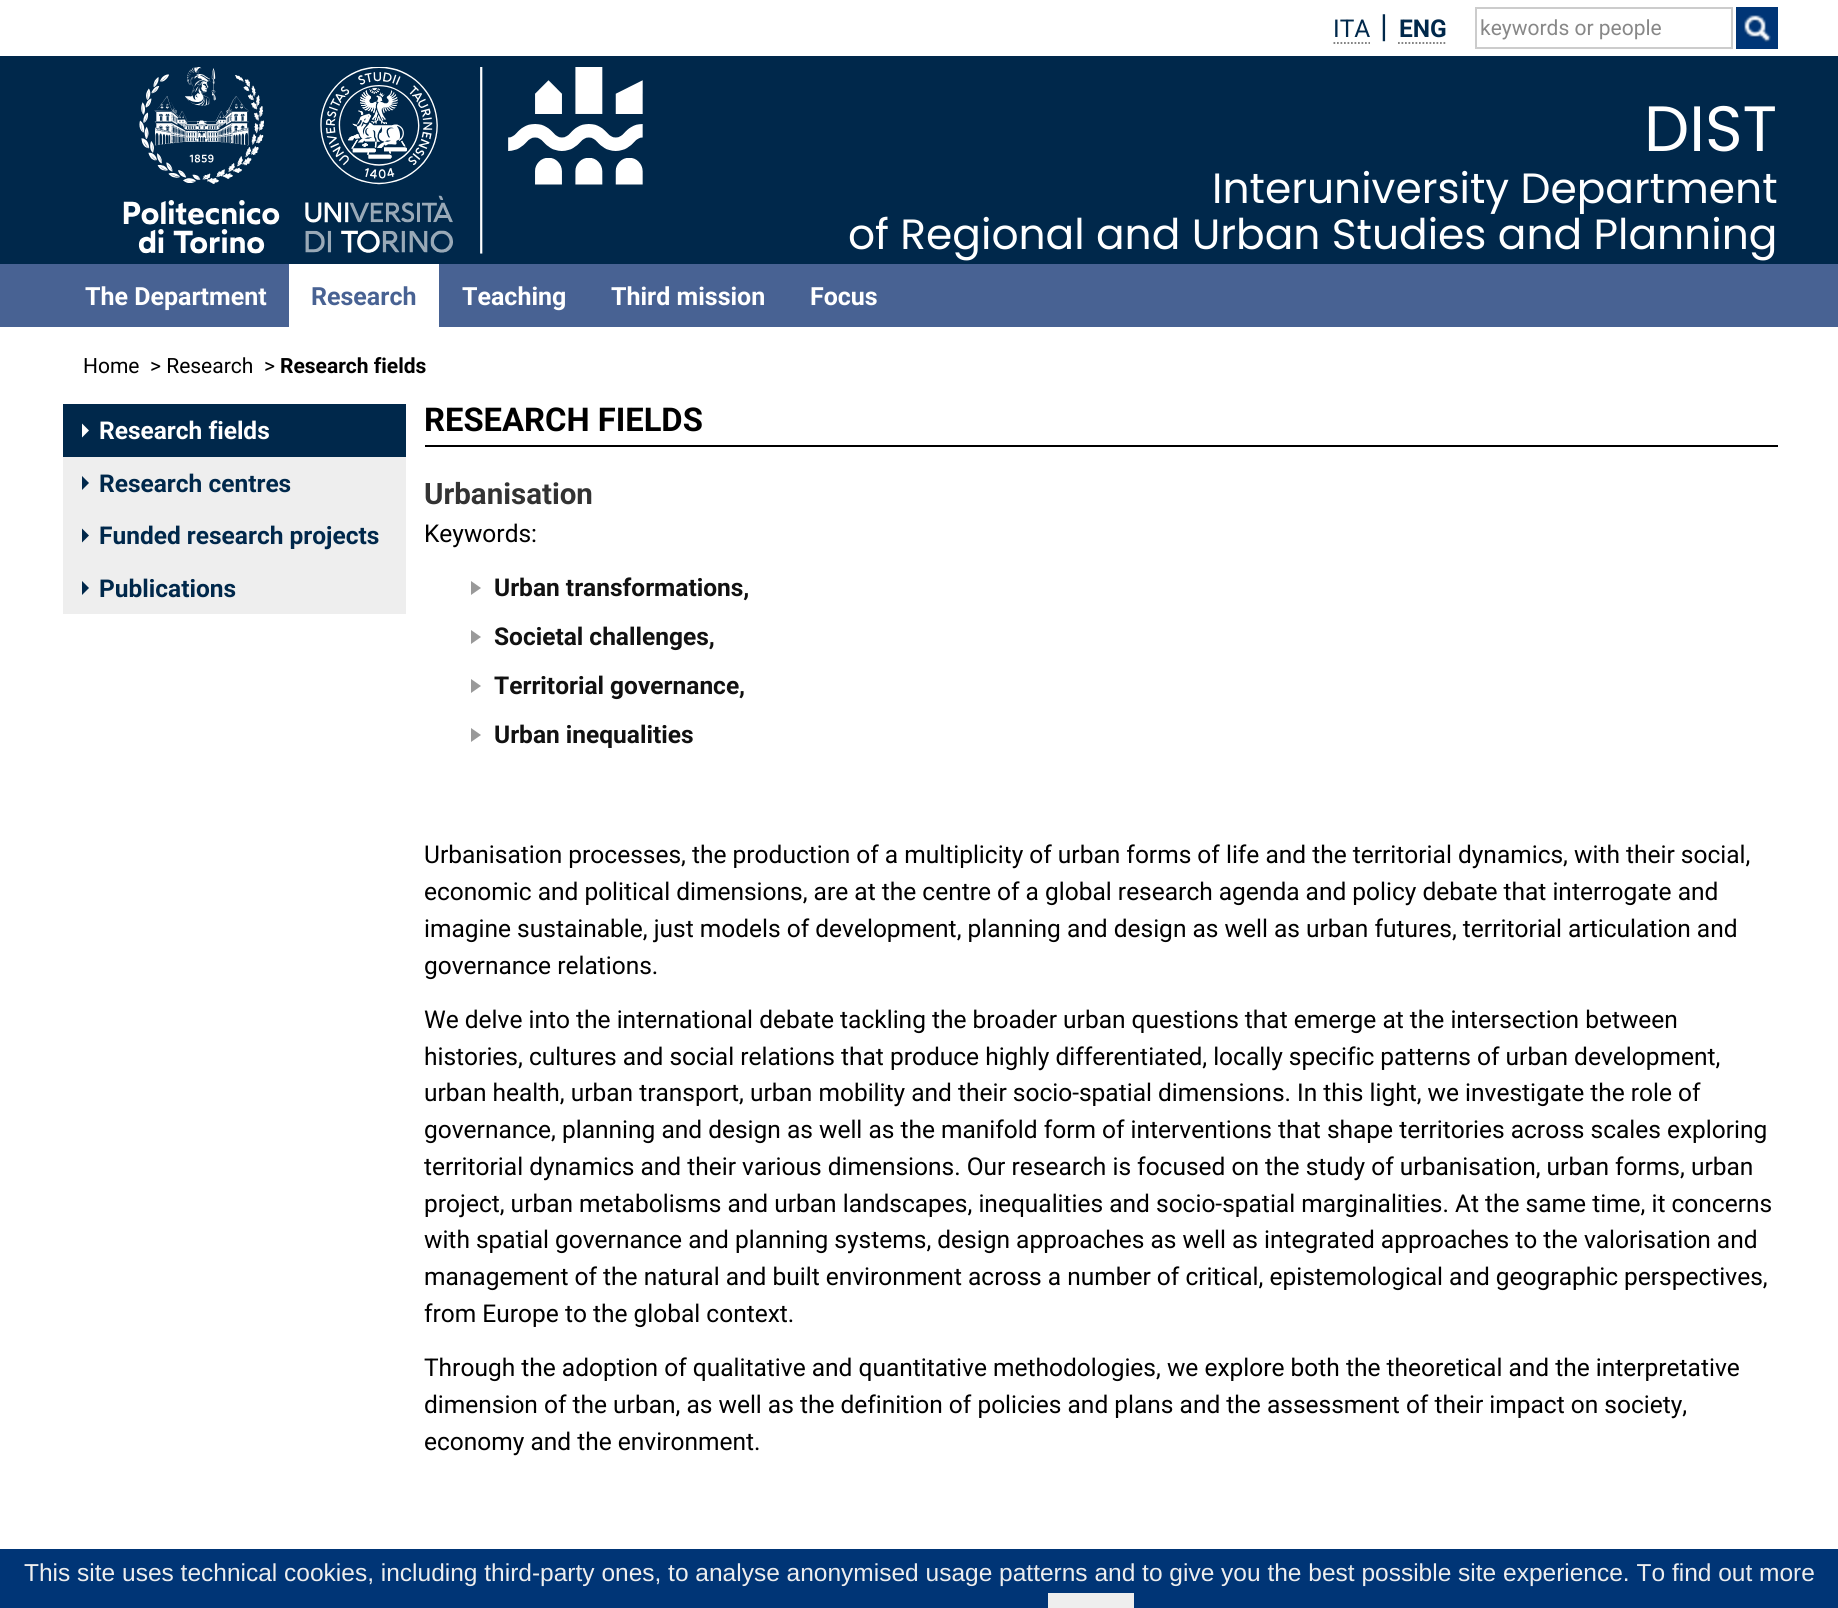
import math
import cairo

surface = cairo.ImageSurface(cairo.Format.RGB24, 1838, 1608)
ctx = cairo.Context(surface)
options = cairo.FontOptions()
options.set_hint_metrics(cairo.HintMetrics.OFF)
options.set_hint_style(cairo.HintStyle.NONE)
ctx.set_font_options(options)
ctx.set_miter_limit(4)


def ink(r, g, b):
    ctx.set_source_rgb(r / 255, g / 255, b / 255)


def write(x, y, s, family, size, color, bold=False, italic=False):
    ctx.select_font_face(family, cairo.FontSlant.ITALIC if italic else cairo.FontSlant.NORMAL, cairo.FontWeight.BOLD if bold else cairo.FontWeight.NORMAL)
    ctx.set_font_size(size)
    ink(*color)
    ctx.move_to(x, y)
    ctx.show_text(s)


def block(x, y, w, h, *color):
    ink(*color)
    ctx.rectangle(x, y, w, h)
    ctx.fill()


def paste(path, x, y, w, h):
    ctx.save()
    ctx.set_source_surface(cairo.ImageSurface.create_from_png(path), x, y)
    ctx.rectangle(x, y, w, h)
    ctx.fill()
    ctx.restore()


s1 = dict(family="Roboto", size=24.5, color=(0, 40, 75))
s2 = dict(family="Roboto", size=32, color=(0, 40, 75))
s3 = dict(family="Roboto", size=24.5, color=(0, 40, 75), bold=True)
s4 = dict(family="Roboto", size=21, color=(136, 136, 136))
s5 = dict(family="Poppins", size=64, color=(255, 255, 255))
s6 = dict(family="Poppins", size=42.35, color=(255, 255, 255))
s7 = dict(family="Roboto", size=25, color=(255, 255, 255), bold=True)
s8 = dict(family="Roboto", size=25, color=(72, 98, 147), bold=True)
s9 = dict(family="Roboto", size=21, color=(0, 0, 0))
s10 = dict(family="Roboto", size=21, color=(0, 0, 0), bold=True)
s11 = dict(family="Roboto", size=24.5, color=(255, 255, 255), bold=True)
s12 = dict(family="Roboto", size=32.75, color=(0, 0, 0), bold=True)
s13 = dict(family="Roboto", size=29.5, color=(51, 51, 51), bold=True)
s14 = dict(family="Roboto", size=24.5, color=(0, 0, 0))
s15 = dict(family="Roboto", size=24.5, color=(17, 17, 17), bold=True)
s16 = dict(family="Liberation Sans", size=24.5, color=(238, 238, 238))

ink(255, 255, 255)
ctx.paint()
write(1333, 37, "ITA", **s1)
ctx.new_path()
ctx.move_to(1333.5, 43)
ctx.line_to(1370, 43)
ink(119, 119, 119)
ctx.set_line_width(1.8)
ctx.set_dash([1.75, 1.75])
ctx.stroke()
write(1380, 37, "|", **s2)
write(1399, 37, "ENG", **s3)
ctx.new_path()
ctx.move_to(1398, 43)
ctx.line_to(1447, 43)
ink(119, 119, 119)
ctx.stroke()
ctx.rectangle(1476, 8, 256, 40)
ink(204, 204, 204)
ctx.set_line_width(2)
ctx.set_dash([])
ctx.stroke()
write(1480, 35, "keywords or people", **s4)
block(1736, 7, 42, 42, 0, 53, 118)
paste("pic1.png", 1744, 15, 27, 27)
block(0, 56, 1838, 208, 0, 40, 75)
paste("pic2.png", 123, 67, 520, 187)
write(1644, 151, "DIST", **s5)
write(1212, 203, "Interuniversity Department", **s6)
write(848, 249, "of Regional and Urban Studies and Planning", **s6)
block(0, 264, 1838, 63, 72, 98, 147)
write(85, 305, "The Department", **s7)
block(289, 264, 150, 63, 255, 255, 255)
write(311, 305, "Research", **s8)
write(462, 305, "Teaching", **s7)
write(611, 305, "Third mission", **s7)
write(810, 305, "Focus", **s7)
write(83, 373, "Home", **s9)
write(150, 373, "> Research", **s9)
write(264, 373, ">", **s9)
write(280, 373, "Research fields", **s10)
block(63, 404, 343, 53, 0, 40, 75)
ink(255, 255, 255)
ctx.new_path()
ctx.move_to(82, 437.5)
ctx.line_to(82, 423.5)
ctx.line_to(89, 430.5)
ctx.close_path()
ctx.fill()
write(99, 439, "Research fields", **s11)
block(63, 457, 343, 157, 238, 238, 238)
ink(0, 40, 75)
ctx.new_path()
ctx.move_to(82, 490)
ctx.line_to(82, 476)
ctx.line_to(89, 483)
ctx.close_path()
ctx.fill()
write(99, 492, "Research centres", **s3)
ctx.new_path()
ctx.move_to(82, 542.5)
ctx.line_to(82, 528.5)
ctx.line_to(89, 535.5)
ctx.close_path()
ctx.fill()
write(99, 544, "Funded research projects", **s3)
ctx.new_path()
ctx.move_to(82, 595)
ctx.line_to(82, 581)
ctx.line_to(89, 588)
ctx.close_path()
ctx.fill()
write(99, 597, "Publications", **s3)
block(425, 445, 1353, 2, 0, 0, 0)
write(424, 431, "RESEARCH FIELDS", **s12)
write(424, 504, "Urbanisation", **s13)
write(424, 542, "Keywords:", **s14)
ink(153, 153, 153)
ctx.new_path()
ctx.move_to(471, 595)
ctx.line_to(471, 581)
ctx.line_to(481, 588)
ctx.close_path()
ctx.move_to(471, 644)
ctx.line_to(471, 630)
ctx.line_to(481, 637)
ctx.close_path()
ctx.fill()
write(494, 596, "Urban transformations,", **s15)
write(494, 645, "Societal challenges,", **s15)
ink(153, 153, 153)
ctx.new_path()
ctx.move_to(471, 693)
ctx.line_to(471, 679)
ctx.line_to(481, 686)
ctx.close_path()
ctx.move_to(471, 742)
ctx.line_to(471, 728)
ctx.line_to(481, 735)
ctx.close_path()
ctx.fill()
write(494, 694, "Territorial governance,", **s15)
write(494, 743, "Urban inequalities", **s15)
write(424, 863, "Urbanisation processes, the production of a multiplicity of urban forms of life and the territorial dynamics, with their social,", **s14)
write(424, 900, "economic and political dimensions, are at the centre of a global research agenda and policy debate that interrogate and", **s14)
write(424, 937, "imagine sustainable, just models of development, planning and design as well as urban futures, territorial articulation and", **s14)
write(424, 974, "governance relations.", **s14)
write(424, 1028, "We delve into the international debate tackling the broader urban questions that emerge at the intersection between", **s14)
write(424, 1065, "histories, cultures and social relations that produce highly differentiated, locally specific patterns of urban development,", **s14)
write(424, 1101, "urban health, urban transport, urban mobility and their socio-spatial dimensions. In this light, we investigate the role of", **s14)
write(424, 1138, "governance, planning and design as well as the manifold form of interventions that shape territories across scales exploring", **s14)
write(424, 1175, "territorial dynamics and their various dimensions. Our research is focused on the study of urbanisation, urban forms, urban", **s14)
write(424, 1212, "project, urban metabolisms and urban landscapes, inequalities and socio-spatial marginalities. At the same time, it concerns", **s14)
write(424, 1248, "with spatial governance and planning systems, design approaches as well as integrated approaches to the valorisation and", **s14)
write(424, 1285, "management of the natural and built environment across a number of critical, epistemological and geographic perspectives,", **s14)
write(424, 1322, "from Europe to the global context.", **s14)
write(424, 1376, "Through the adoption of qualitative and quantitative methodologies, we explore both the theoretical and the interpretative", **s14)
write(424, 1413, "dimension of the urban, as well as the definition of policies and plans and the assessment of their impact on society,", **s14)
write(424, 1450, "economy and the environment.", **s14)
block(0, 1549, 1838, 59, 0, 53, 118)
write(24, 1581, "This site uses technical cookies, including third-party ones, to analyse anonymised usage patterns and to give you the best possible site experience. To find out more", **s16)
block(1048, 1593, 86, 15, 238, 238, 238)
surface.write_to_png("screenshot.png")
